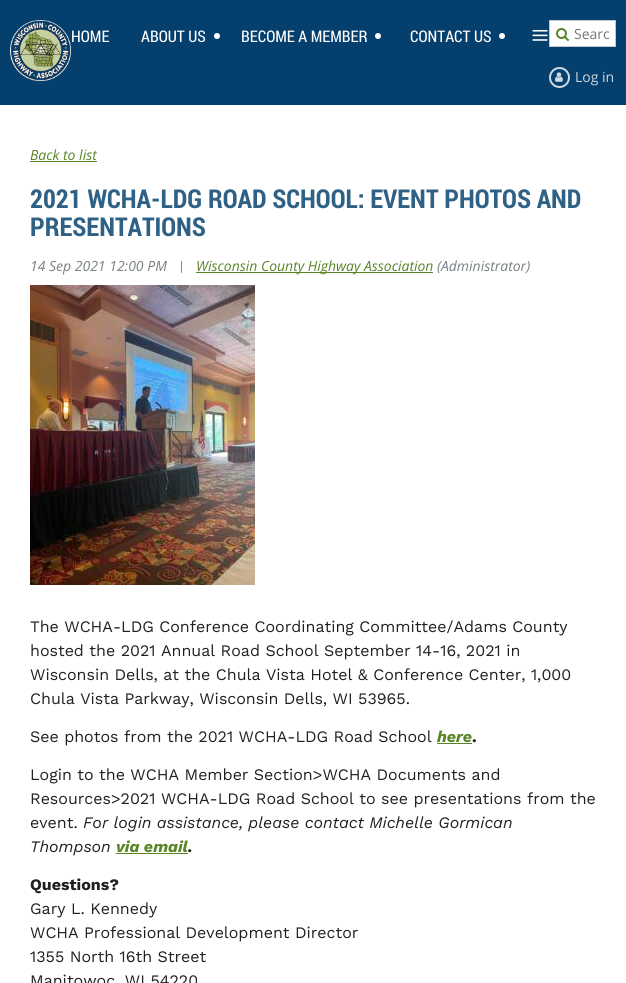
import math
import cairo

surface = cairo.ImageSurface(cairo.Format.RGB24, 626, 983)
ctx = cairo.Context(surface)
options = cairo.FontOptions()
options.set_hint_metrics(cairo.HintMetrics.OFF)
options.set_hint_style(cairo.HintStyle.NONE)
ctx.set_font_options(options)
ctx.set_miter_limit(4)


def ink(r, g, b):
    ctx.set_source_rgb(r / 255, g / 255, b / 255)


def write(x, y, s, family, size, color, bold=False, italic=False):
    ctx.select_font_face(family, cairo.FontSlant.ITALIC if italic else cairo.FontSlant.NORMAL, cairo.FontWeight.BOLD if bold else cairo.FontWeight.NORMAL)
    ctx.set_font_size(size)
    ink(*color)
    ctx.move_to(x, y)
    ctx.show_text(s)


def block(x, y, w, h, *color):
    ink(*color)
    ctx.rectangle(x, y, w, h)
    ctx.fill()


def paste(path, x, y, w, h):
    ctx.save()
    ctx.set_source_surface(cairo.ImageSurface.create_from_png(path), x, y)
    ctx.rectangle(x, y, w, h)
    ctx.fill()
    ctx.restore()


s1 = dict(family="Roboto Condensed", size=16, color=(254, 254, 254))
s2 = dict(family="Liberation Serif", size=32, color=(254, 254, 254))
s3 = dict(family="Open Sans", size=14, color=(117, 117, 117))
s4 = dict(family="Open Sans", size=14, color=(205, 217, 226))
s5 = dict(family="Open Sans", size=14, color=(89, 133, 39), italic=True)
s6 = dict(family="Roboto Condensed", size=26, color=(46, 97, 133), bold=True)
s7 = dict(family="Open Sans", size=14, color=(121, 128, 132), italic=True)
s8 = dict(family="Roboto Condensed", size=14, color=(121, 128, 132))
s9 = dict(family="Work Sans", size=16, color=(33, 32, 31))
s10 = dict(family="Work Sans", size=16, color=(89, 133, 39), bold=True, italic=True)
s11 = dict(family="Work Sans", size=16, color=(33, 32, 31), bold=True)
s12 = dict(family="Work Sans", size=16, color=(33, 32, 31), italic=True)
s13 = dict(family="Work Sans", size=16, color=(33, 32, 31), bold=True, italic=True)

ink(255, 255, 255)
ctx.paint()
block(0, 0, 626, 105, 5, 63, 109)
paste("pic1.png", 10, 20, 61, 61)
write(71, 42, "HOME", **s1)
write(141, 42, "ABOUT US", **s1)
ink(255, 255, 255)
ctx.new_path()
ctx.arc(217, 36, 3, 0, 2 * math.pi)
ctx.fill()
write(241, 42, "BECOME A MEMBER", **s1)
ink(255, 255, 255)
ctx.new_path()
ctx.arc(378, 36, 3, 0, 2 * math.pi)
ctx.fill()
write(410, 42, "CONTACT US", **s1)
ink(255, 255, 255)
ctx.new_path()
ctx.arc(502, 36, 3, 0, 2 * math.pi)
ctx.fill()
write(531, 46, "≡", **s2)
ink(255, 255, 255)
ctx.rectangle(549.5, 20.5, 66, 26)
ctx.fill_preserve()
ink(198, 198, 198)
ctx.set_line_width(1)
ctx.stroke()
paste("pic2.png", 556, 28, 13, 13)
write(574, 39, "Searc", **s3)
ctx.new_path()
ctx.arc(559.5, 77.5, 9.5, 0, 2 * math.pi)
ink(205, 217, 226)
ctx.set_line_width(2)
ctx.stroke()
paste("pic3.png", 555, 72, 8, 10)
write(575, 82, "Log in", **s4)
write(30, 160, "Back to list", **s5)
block(30, 161, 67, 1, 89, 133, 39)
write(30, 208, "2021 WCHA-LDG ROAD SCHOOL: EVENT PHOTOS AND", **s6)
write(30, 236, "PRESENTATIONS", **s6)
write(30, 271, "14 Sep 2021 12:00 PM", **s7)
write(180, 271, "|", **s8)
block(196, 272, 237, 1, 89, 133, 39)
write(196, 271, "Wisconsin County Highway Association", **s5)
write(437, 271, "(Administrator)", **s7)
paste("pic4.png", 30, 285, 225, 300)
write(30, 632, "The WCHA-LDG Conference Coordinating Committee/Adams County", **s9)
write(30, 656, "hosted the 2021 Annual Road School September 14-16, 2021 in", **s9)
write(30, 680, "Wisconsin Dells, at the Chula Vista Hotel & Conference Center, 1,000", **s9)
write(30, 704, "Chula Vista Parkway, Wisconsin Dells, WI 53965.", **s9)
write(30, 742, "See photos from the 2021 WCHA-LDG Road School", **s9)
write(437, 742, "here", **s10)
write(472, 742, ".", **s11)
block(437, 743, 35, 1, 89, 133, 39)
write(30, 780, "Login to the WCHA Member Section>WCHA Documents and", **s9)
write(30, 804, "Resources>2021 WCHA-LDG Road School to see presentations from the", **s9)
write(30, 828, "event.", **s9)
write(83, 828, "For login assistance, please contact Michelle Gormican", **s12)
write(30, 852, "Thompson", **s12)
write(116, 852, "via email", **s10)
write(188, 852, ".", **s13)
block(116, 853, 72, 1, 89, 133, 39)
write(30, 890, "Questions?", **s11)
write(30, 914, "Gary L. Kennedy", **s9)
write(30, 938, "WCHA Professional Development Director", **s9)
write(30, 962, "1355 North 16th Street", **s9)
write(30, 986, "Manitowoc, WI 54220", **s9)
surface.write_to_png("screenshot.png")
